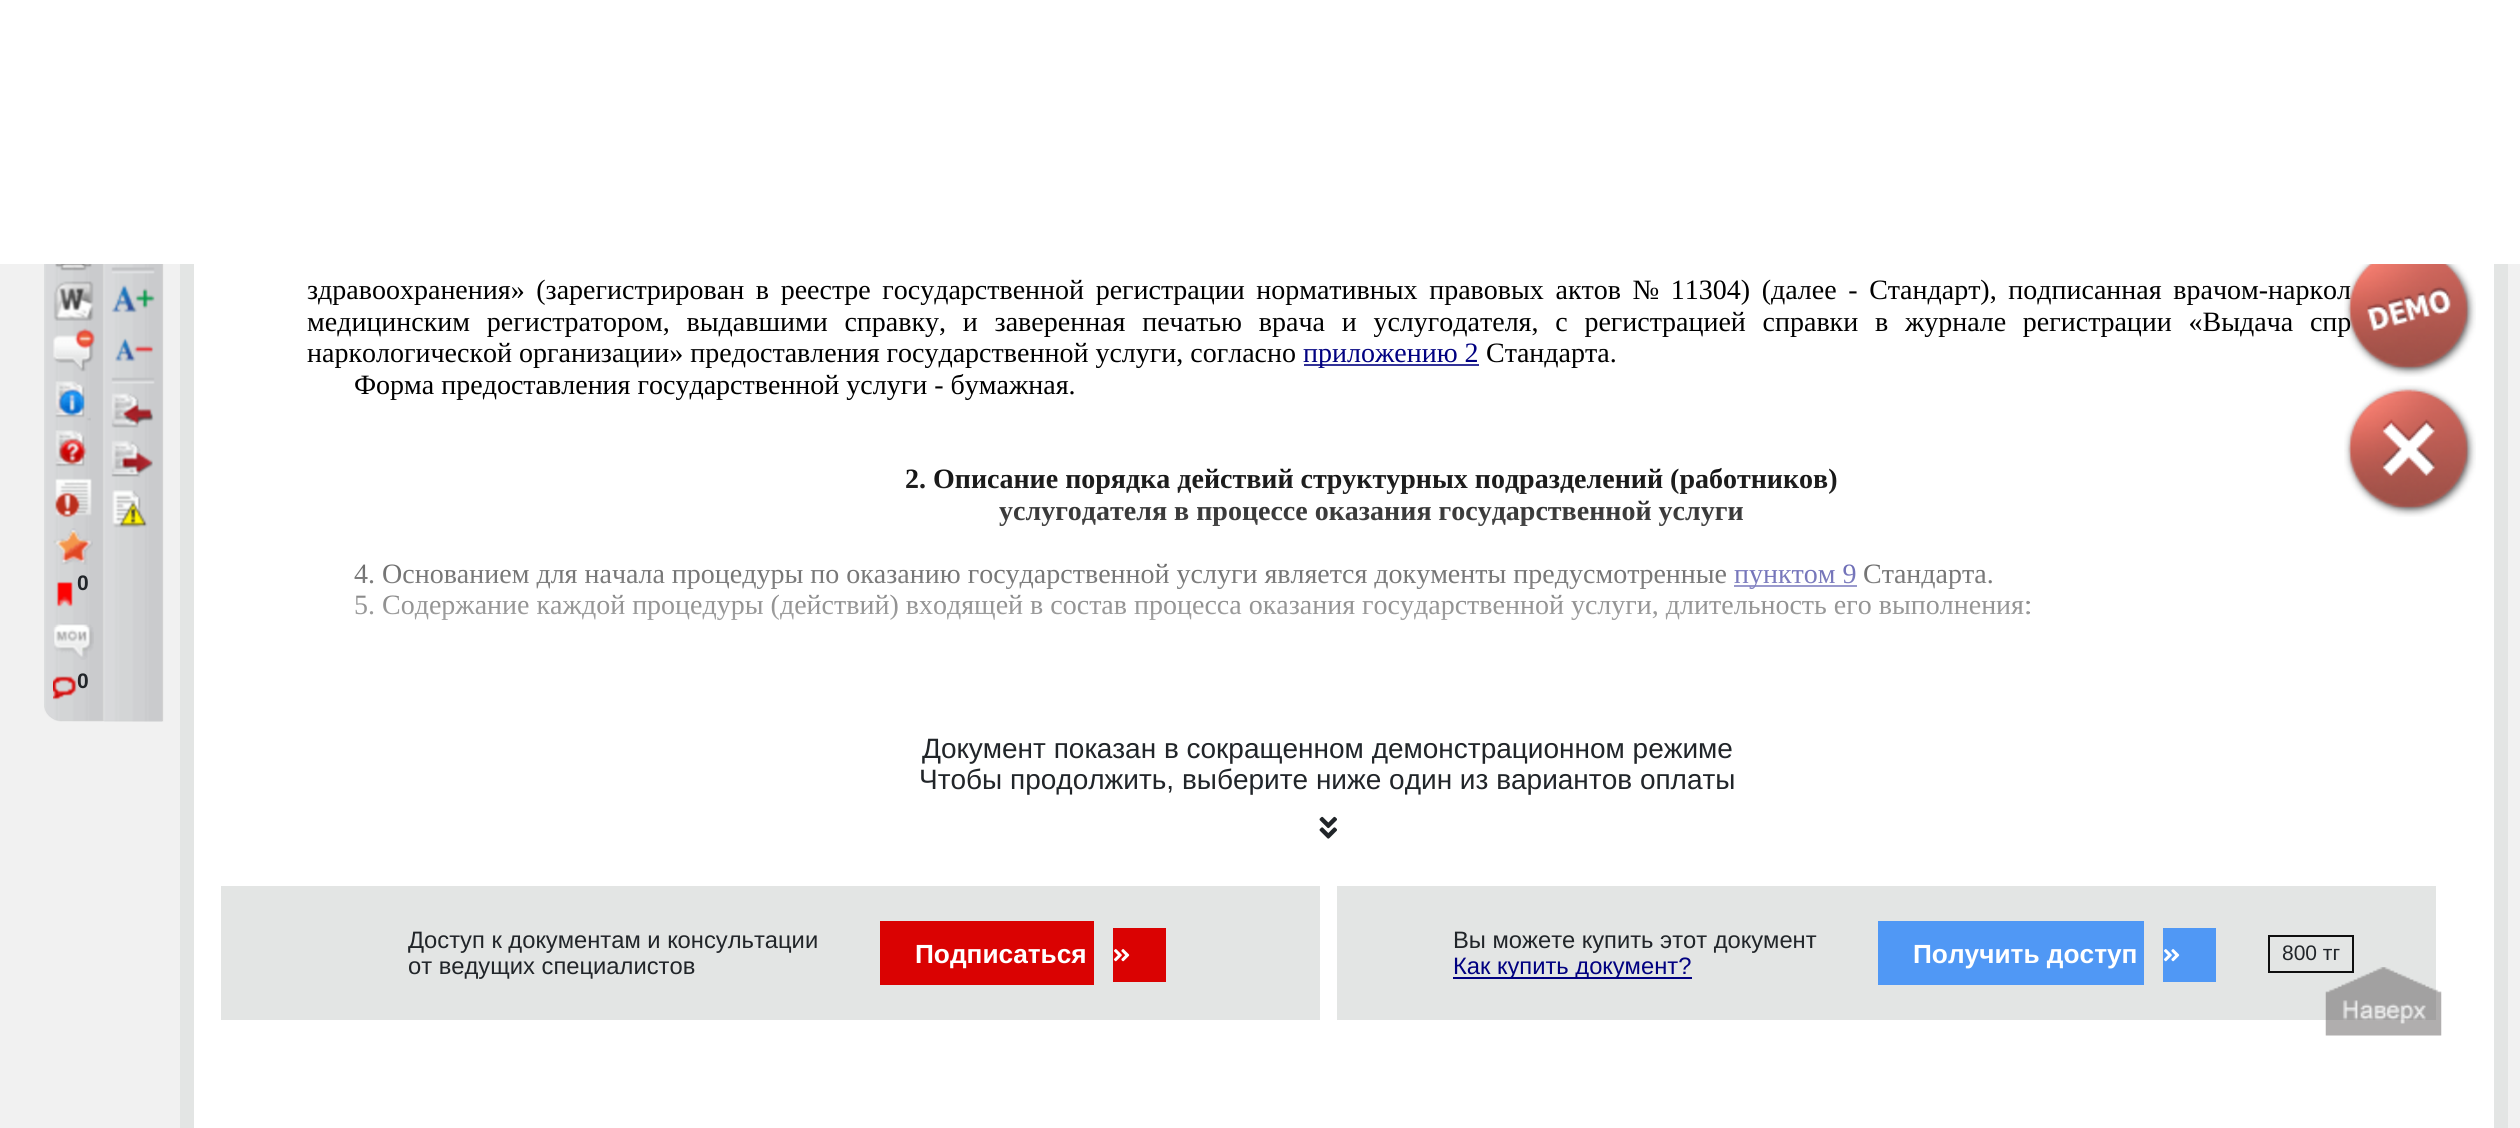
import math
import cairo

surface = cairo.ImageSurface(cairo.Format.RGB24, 2520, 1128)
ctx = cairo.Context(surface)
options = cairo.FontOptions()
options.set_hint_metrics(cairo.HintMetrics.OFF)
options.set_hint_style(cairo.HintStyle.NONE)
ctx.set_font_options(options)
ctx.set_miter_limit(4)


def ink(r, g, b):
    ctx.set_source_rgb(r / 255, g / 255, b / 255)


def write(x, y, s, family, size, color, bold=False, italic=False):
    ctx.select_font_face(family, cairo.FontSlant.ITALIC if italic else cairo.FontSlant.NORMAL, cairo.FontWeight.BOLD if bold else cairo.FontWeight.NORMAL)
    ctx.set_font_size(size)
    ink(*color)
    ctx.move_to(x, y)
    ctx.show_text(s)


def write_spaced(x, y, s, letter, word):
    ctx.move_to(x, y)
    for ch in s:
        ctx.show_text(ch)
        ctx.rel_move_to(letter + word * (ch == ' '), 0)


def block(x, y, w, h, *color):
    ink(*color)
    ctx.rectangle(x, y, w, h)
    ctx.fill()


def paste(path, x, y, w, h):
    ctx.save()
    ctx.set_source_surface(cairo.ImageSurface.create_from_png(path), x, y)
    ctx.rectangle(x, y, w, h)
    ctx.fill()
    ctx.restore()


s1 = dict(family="Liberation Sans", size=21, color=(33, 37, 41), bold=True)
s2 = dict(family="Liberation Serif", size=28, color=(0, 0, 0))
s3 = dict(family="Liberation Serif", size=28, color=(0, 0, 128))
s4 = dict(family="Liberation Serif", size=28, color=(0, 0, 0), bold=True)
s5 = dict(family="Liberation Sans", size=28, color=(33, 37, 41))
s6 = dict(family="Liberation Sans", size=23.75, color=(33, 37, 41))
s7 = dict(family="Liberation Sans", size=26.25, color=(255, 255, 255), bold=True)
s8 = dict(family="Liberation Sans", size=23.75, color=(0, 0, 128))
s9 = dict(family="Liberation Sans", size=21, color=(33, 37, 41))

ink(241, 241, 241)
ctx.paint()
ink(209, 209, 207)
ctx.new_path()
ctx.move_to(44, 116)
ctx.line_to(103, 116)
ctx.line_to(103, 721)
ctx.line_to(62, 721)
ctx.curve_to(52, 721, 44, 713, 44, 703)
ctx.close_path()
ctx.fill()
block(194, 264, 2300, 864, 255, 255, 255)
ctx.rectangle(187, -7, 2314, 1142)
ink(227, 229, 228)
ctx.set_line_width(14)
ctx.stroke()
block(0, 0, 2520, 264, 255, 255, 255)
paste("pic1.png", 44, 264, 60, 458)
paste("pic2.png", 55, 264, 37, 7)
paste("pic3.png", 53, 281, 41, 40)
paste("pic4.png", 53, 328, 42, 44)
paste("pic5.png", 55, 381, 36, 40)
paste("pic6.png", 55, 430, 32, 37)
paste("pic7.png", 55, 478, 37, 40)
paste("pic8.png", 53, 528, 40, 37)
paste("pic9.png", 56, 581, 17, 26)
write(77, 590, "0", **s1)
paste("pic10.png", 53, 623, 41, 37)
paste("pic11.png", 53, 676, 24, 24)
write(77, 688, "0", **s1)
block(103, 264, 60, 457, 209, 209, 207)
paste("pic12.png", 103, 264, 61, 458)
paste("pic13.png", 111, 267, 44, 7)
paste("pic14.png", 111, 284, 44, 29)
paste("pic15.png", 115, 338, 39, 24)
paste("pic16.png", 111, 377, 44, 7)
paste("pic17.png", 111, 393, 43, 35)
paste("pic18.png", 111, 440, 42, 38)
paste("pic19.png", 112, 490, 36, 38)
ctx.select_font_face("Liberation Serif")
ctx.set_font_size(28)
ink(0, 0, 0)
write_spaced(307, 299, "здравоохранения» (зарегистрирован в реестре государственной регистрации нормативных правовых актов № 11304) (далее - Стандарт), подписанная врачом-наркол", 0, 4.6)
write_spaced(307, 331, "медицинским регистратором, выдавшими справку, и заверенная печатью врача и услугодателя, с регистрацией справки в журнале регистрации «Выдача спр", 0, 9.75)
write(307, 362, "наркологической организации» предоставления государственной услуги, согласно", **s2)
block(1304, 364, 175, 2, 51, 51, 153)
write(1303, 362, "приложению 2", **s3)
write(1486, 362, "Стандарта.", **s2)
write(354, 394, "Форма предоставления государственной услуги - бумажная.", **s2)
write(905, 488, "2. Описание порядка действий структурных подразделений (работников)", **s4)
write(999, 520, "услугодателя в процессе оказания государственной услуги", **s4)
write(354, 583, "4. Основанием для начала процедуры по оказанию государственной услуги является документы предусмотренные", **s2)
block(1734, 585, 123, 2, 51, 51, 153)
write(1734, 583, "пунктом 9", **s3)
write(1863, 583, "Стандарта.", **s2)
write(354, 614, "5. Содержание каждой процедуры (действий) входящей в состав процесса оказания государственной услуги, длительность его выполнения:", **s2)
gradient = cairo.LinearGradient(1328, 453, 1328, 716)
gradient.add_color_stop_rgba(0, 1, 1, 1, 0)
gradient.add_color_stop_rgba(1, 1, 1, 1, 1)
ctx.set_source(gradient)
ctx.rectangle(354, 468, 1675, 152)
ctx.fill()
write(922, 758, "Документ показан в сокращенном демонстрационном режиме", **s5)
write(919, 789, "Чтобы продолжить, выберите ниже один из вариантов оплаты", **s5)
paste("pic20.png", 1319, 816, 18, 23)
block(221, 886, 1099, 134, 227, 229, 228)
write(408, 948, "Доступ к документам и консультации", **s6)
write(408, 974, "от ведущих специалистов", **s6)
block(880, 921, 214, 64, 218, 2, 2)
block(1113, 928, 53, 54, 218, 2, 2)
write(915, 963, "Подписаться", **s7)
paste("pic21.png", 1114, 949, 16, 13)
block(1337, 886, 1099, 134, 227, 229, 228)
write(1453, 948, "Вы можете купить этот документ", **s6)
block(1453, 977, 239, 2, 0, 0, 128)
write(1453, 974, "Как купить документ?", **s8)
block(1878, 921, 266, 64, 80, 152, 245)
block(2163, 928, 53, 54, 80, 152, 245)
write(1913, 963, "Получить доступ", **s7)
paste("pic22.png", 2164, 949, 16, 13)
ctx.rectangle(2269, 936, 84, 36)
ink(15, 15, 15)
ctx.set_line_width(2)
ctx.stroke()
write(2282, 960, "800 тг", **s9)
paste("pic23.png", 2344, 264, 132, 113)
paste("pic24.png", 2344, 385, 132, 132)
paste("pic25.png", 2325, 967, 117, 69)
surface.write_to_png("screenshot.png")
